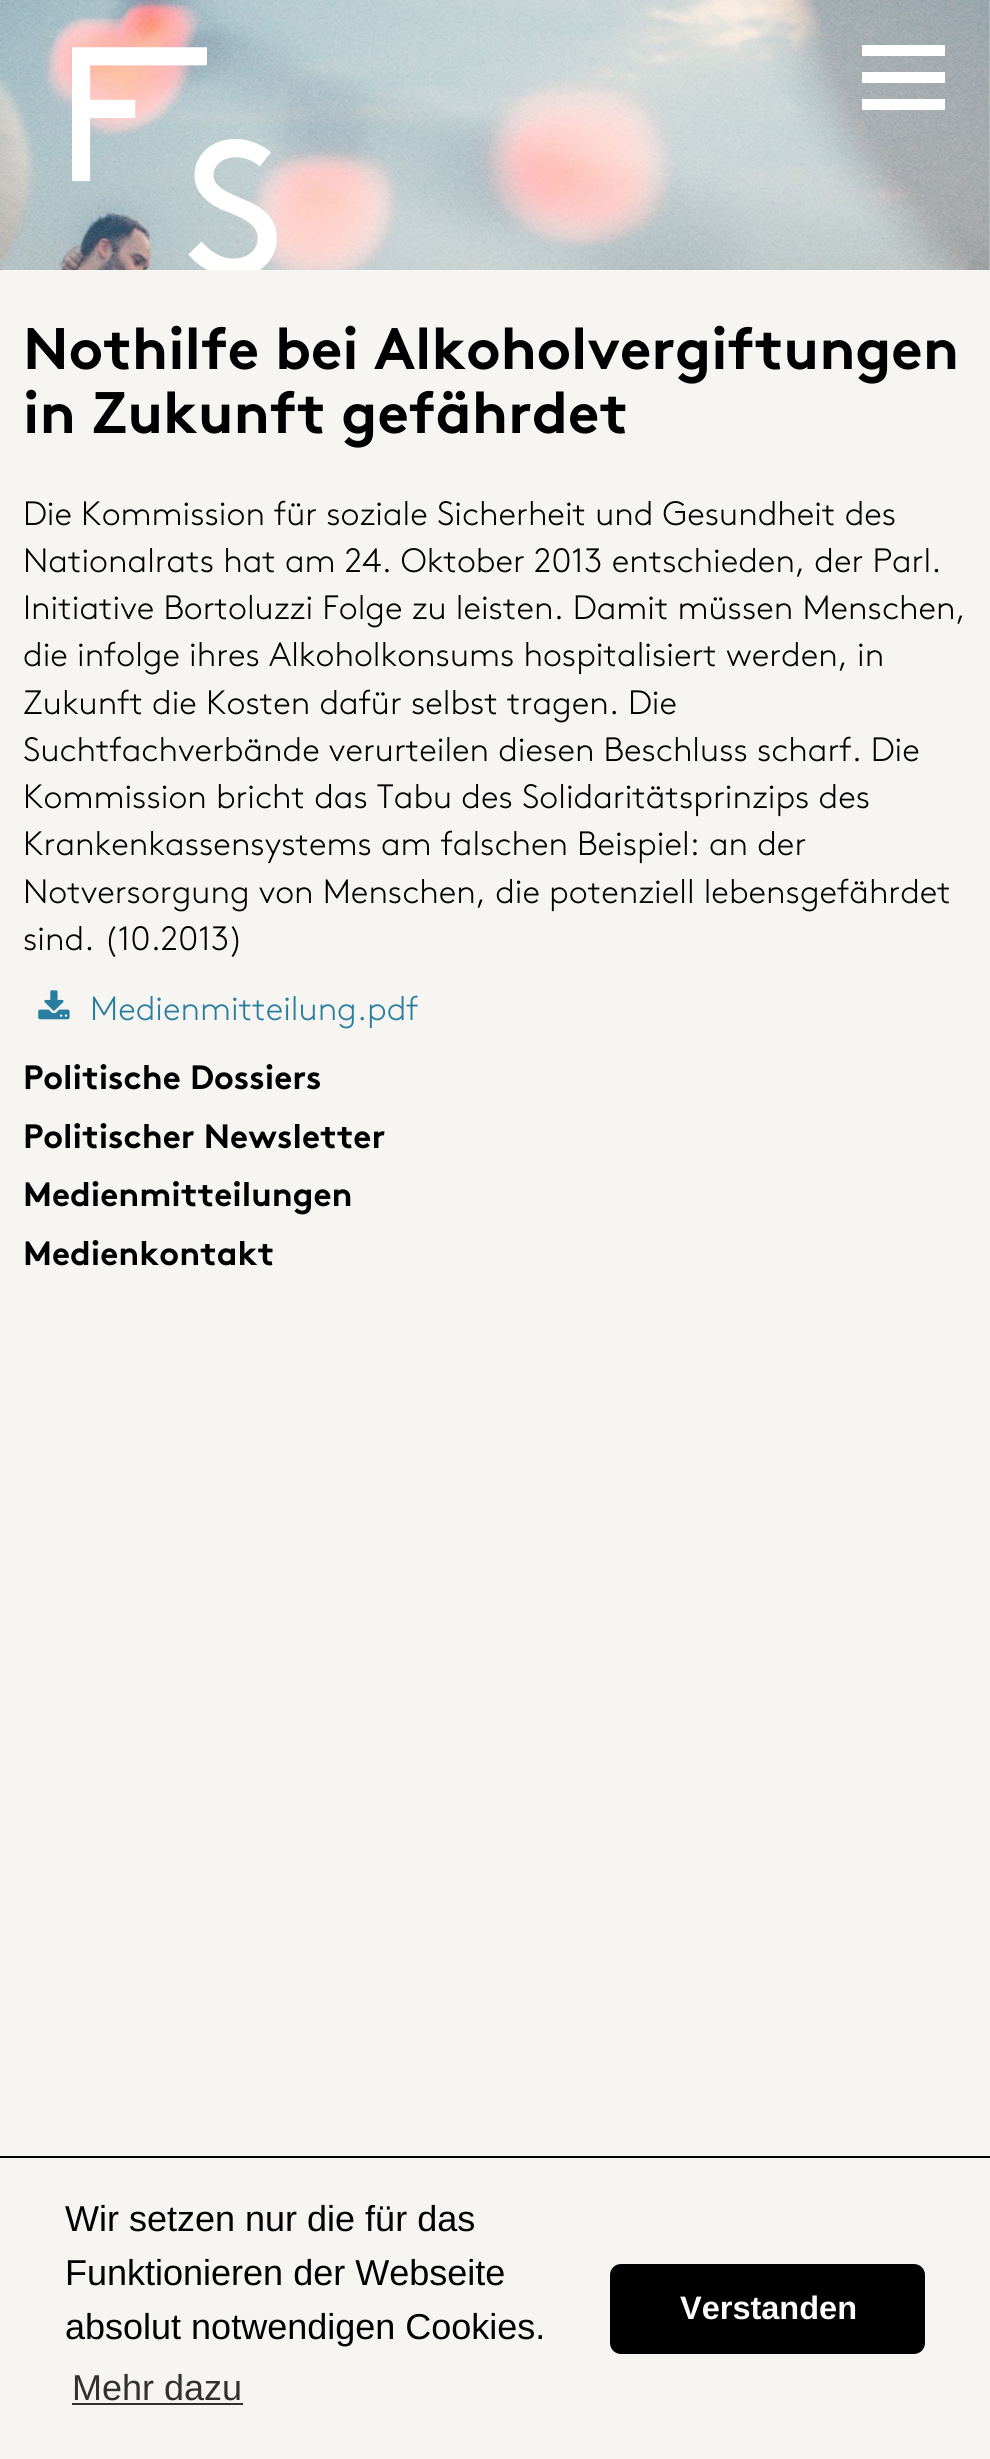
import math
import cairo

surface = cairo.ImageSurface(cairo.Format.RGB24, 990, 2459)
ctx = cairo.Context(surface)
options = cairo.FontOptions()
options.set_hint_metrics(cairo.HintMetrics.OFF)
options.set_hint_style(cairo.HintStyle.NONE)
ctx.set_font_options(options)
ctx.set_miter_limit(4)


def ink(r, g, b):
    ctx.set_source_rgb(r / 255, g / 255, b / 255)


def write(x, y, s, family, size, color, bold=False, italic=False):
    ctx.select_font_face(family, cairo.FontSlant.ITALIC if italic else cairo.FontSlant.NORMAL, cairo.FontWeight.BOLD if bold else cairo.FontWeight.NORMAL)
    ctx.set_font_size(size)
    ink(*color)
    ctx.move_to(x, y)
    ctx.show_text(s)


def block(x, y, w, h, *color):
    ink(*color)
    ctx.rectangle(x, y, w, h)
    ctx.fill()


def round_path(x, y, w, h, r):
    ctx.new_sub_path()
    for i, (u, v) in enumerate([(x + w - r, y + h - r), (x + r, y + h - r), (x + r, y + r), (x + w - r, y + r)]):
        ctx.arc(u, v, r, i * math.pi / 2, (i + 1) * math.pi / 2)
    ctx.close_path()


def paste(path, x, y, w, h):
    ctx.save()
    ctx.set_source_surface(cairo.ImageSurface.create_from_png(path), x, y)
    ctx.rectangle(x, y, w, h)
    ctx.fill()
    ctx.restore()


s1 = dict(family="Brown", size=58.5, color=(0, 0, 0), bold=True)
s2 = dict(family="Brown Light", size=33.75, color=(0, 0, 0))
s3 = dict(family="Brown Light", size=33.75, color=(41, 125, 158))
s4 = dict(family="Brown", size=33.75, color=(0, 0, 0), bold=True)
s5 = dict(family="Liberation Sans", size=36, color=(0, 0, 0))
s6 = dict(family="Liberation Sans", size=36, color=(49, 49, 48))
s7 = dict(family="Liberation Sans", size=32.5, color=(255, 255, 255), bold=True)

ink(246, 245, 242)
ctx.paint()
paste("pic1.png", 0, 0, 990, 270)
paste("pic2.png", 72, 47, 205, 223)
block(862, 72, 83, 11, 255, 255, 255)
block(862, 45, 83, 11, 255, 255, 255)
block(862, 99, 83, 11, 255, 255, 255)
write(23, 369, "Nothilfe bei Alkoholvergiftungen", **s1)
write(23, 433, "in Zukunft gefährdet", **s1)
write(23, 525, "Die Kommission für soziale Sicherheit und Gesundheit des", **s2)
write(23, 572, "Nationalrats hat am 24. Oktober 2013 entschieden, der Parl.", **s2)
write(23, 619, "Initiative Bortoluzzi Folge zu leisten. Damit müssen Menschen,", **s2)
write(23, 666, "die infolge ihres Alkoholkonsums hospitalisiert werden, in", **s2)
write(23, 714, "Zukunft die Kosten dafür selbst tragen. Die", **s2)
write(23, 761, "Suchtfachverbände verurteilen diesen Beschluss scharf. Die", **s2)
write(23, 808, "Kommission bricht das Tabu des Solidaritätsprinzips des", **s2)
write(23, 855, "Krankenkassensystems am falschen Beispiel: an der", **s2)
write(23, 903, "Notversorgung von Menschen, die potenziell lebensgefährdet", **s2)
write(23, 950, "sind. (10.2013)", **s2)
paste("pic3.png", 38, 990, 32, 30)
write(90, 1020, "Medienmitteilung.pdf", **s3)
write(23, 1089, "Politische Dossiers", **s4)
write(23, 1148, "Politischer Newsletter", **s4)
write(23, 1206, "Medienmitteilungen", **s4)
write(23, 1265, "Medienkontakt", **s4)
block(0, 2156, 990, 2, 0, 0, 0)
write(65, 2231, "Wir setzen nur die für das", **s5)
write(65, 2285, "Funktionieren der Webseite", **s5)
write(65, 2339, "absolut notwendigen Cookies.", **s5)
write(72, 2400, "Mehr dazu", **s6)
block(72, 2403, 171, 2, 49, 49, 48)
ink(0, 0, 0)
round_path(610, 2264, 315, 90, 11)
ctx.fill()
write(680, 2319, "Verstanden", **s7)
surface.write_to_png("screenshot.png")
